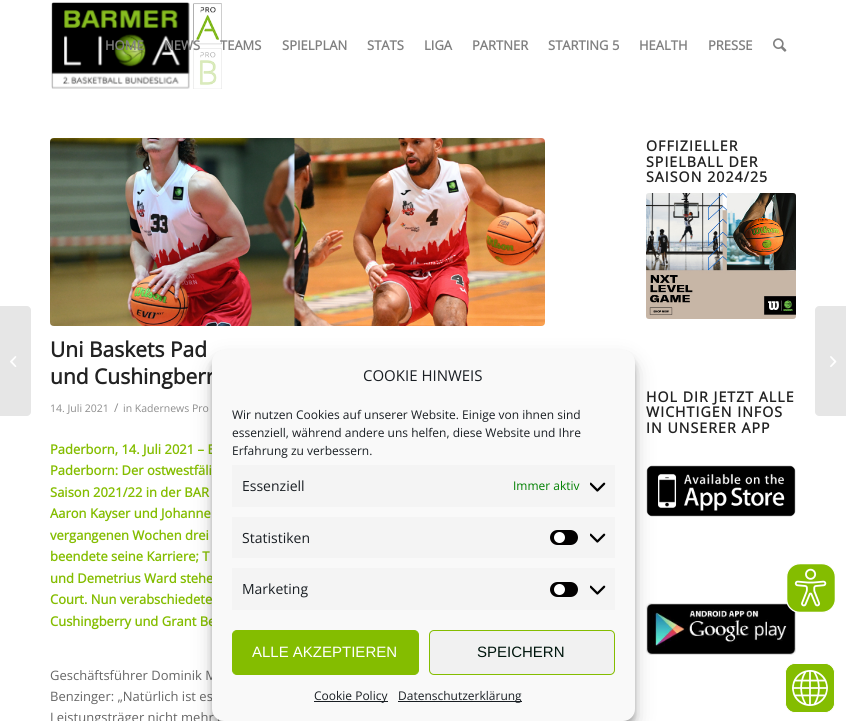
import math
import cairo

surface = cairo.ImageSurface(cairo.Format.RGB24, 846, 721)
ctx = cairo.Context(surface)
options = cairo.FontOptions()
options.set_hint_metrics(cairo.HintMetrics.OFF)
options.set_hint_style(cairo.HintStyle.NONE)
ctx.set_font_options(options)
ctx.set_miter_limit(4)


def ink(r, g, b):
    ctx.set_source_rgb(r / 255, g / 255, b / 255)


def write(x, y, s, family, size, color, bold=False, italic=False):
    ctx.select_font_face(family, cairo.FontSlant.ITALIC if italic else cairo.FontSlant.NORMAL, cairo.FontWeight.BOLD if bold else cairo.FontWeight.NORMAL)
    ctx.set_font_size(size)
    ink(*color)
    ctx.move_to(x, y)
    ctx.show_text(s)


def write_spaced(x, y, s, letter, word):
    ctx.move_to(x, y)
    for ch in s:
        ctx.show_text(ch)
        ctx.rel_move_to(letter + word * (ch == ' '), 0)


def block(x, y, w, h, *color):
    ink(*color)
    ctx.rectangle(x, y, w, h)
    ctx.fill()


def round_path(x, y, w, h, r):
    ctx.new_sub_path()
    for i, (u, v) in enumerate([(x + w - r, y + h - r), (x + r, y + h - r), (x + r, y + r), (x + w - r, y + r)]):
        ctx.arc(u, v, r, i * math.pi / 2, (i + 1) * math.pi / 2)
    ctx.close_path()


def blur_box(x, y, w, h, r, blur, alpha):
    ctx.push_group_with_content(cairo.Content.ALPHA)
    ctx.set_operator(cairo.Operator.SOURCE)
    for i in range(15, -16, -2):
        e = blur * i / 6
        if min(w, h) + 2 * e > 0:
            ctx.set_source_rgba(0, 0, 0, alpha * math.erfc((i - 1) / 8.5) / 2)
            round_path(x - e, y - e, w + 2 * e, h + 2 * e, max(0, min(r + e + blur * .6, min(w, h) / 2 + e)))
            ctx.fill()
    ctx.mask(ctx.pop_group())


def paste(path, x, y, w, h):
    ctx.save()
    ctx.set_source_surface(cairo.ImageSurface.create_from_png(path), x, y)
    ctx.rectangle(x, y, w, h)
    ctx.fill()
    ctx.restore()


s1 = dict(family="Open Sans", size=13, color=(128, 128, 128), bold=True)
s2 = dict(family="Open Sans", size=21, color=(34, 34, 34), bold=True)
s3 = dict(family="Open Sans", size=10.5, color=(141, 141, 141))
s4 = dict(family="Open Sans", size=12, color=(141, 141, 141))
s5 = dict(family="Open Sans", size=13, color=(132, 189, 0), bold=True)
s6 = dict(family="Open Sans", size=13, color=(102, 102, 102))
s7 = dict(family="Open Sans", size=15, color=(25, 30, 35))
s8 = dict(family="Open Sans", size=12, color=(25, 30, 35))
s9 = dict(family="Open Sans", size=14, color=(25, 30, 35))
s10 = dict(family="Open Sans", size=12, color=(0, 128, 0))
s11 = dict(family="Liberation Sans", size=15, color=(255, 255, 255))
s12 = dict(family="Liberation Sans", size=15, color=(0, 22, 13))

ink(255, 255, 255)
ctx.paint()
paste("pic1.png", 51, 2, 139, 87)
paste("pic2.png", 193, 3, 29, 42)
paste("pic3.png", 193, 48, 29, 41)
write(105, 50, "HOME", **s1)
write(164, 50, "NEWS", **s1)
write(220, 50, "TEAMS", **s1)
write(282, 50, "SPIELPLAN", **s1)
write(367, 50, "STATS", **s1)
write(424, 50, "LIGA", **s1)
write(472, 50, "PARTNER", **s1)
write(548, 50, "STARTING 5", **s1)
write(639, 50, "HEALTH", **s1)
write(708, 50, "PRESSE", **s1)
paste("pic4.png", 773, 38, 14, 14)
ink(132, 189, 0)
round_path(785.5, 663.5, 49, 49, 9.5)
ctx.fill_preserve()
ink(255, 255, 255)
ctx.set_line_width(1)
ctx.stroke()
ink(132, 189, 0)
round_path(786, 664, 48, 48, 10)
ctx.fill()
paste("pic5.png", 792, 670, 36, 36)
ink(230, 230, 230)
ctx.new_path()
ctx.move_to(0, 306)
ctx.line_to(27, 306)
ctx.curve_to(29, 306, 31, 308, 31, 310)
ctx.line_to(31, 412)
ctx.curve_to(31, 414, 29, 416, 27, 416)
ctx.line_to(0, 416)
ctx.close_path()
ctx.fill()
paste("pic6.png", 10, 356, 7, 11)
ctx.set_font_size(14.25)
ink(34, 34, 34)
write_spaced(646, 151, "OFFIZIELLER", 1, 0)
write_spaced(646, 167, "SPIELBALL DER", 1, 0)
write_spaced(646, 182, "SAISON 2024/25", 1, 0)
paste("pic7.png", 646, 193, 150, 126)
write_spaced(646, 402, "HOL DIR JETZT ALLE", 1, 0)
write_spaced(646, 417, "WICHTIGEN INFOS", 1, 0)
write_spaced(646, 433, "IN UNSERER APP", 1, 0)
paste("pic8.png", 646, 465, 150, 52)
paste("pic9.png", 646, 603, 150, 52)
paste("pic10.png", 50, 138, 495, 188)
write(50, 357, "Uni Baskets Pad", **s2)
write(50, 384, "und Cushingberr", **s2)
write(50, 412, "14. Juli 2021", **s3)
write(114, 412, "/", **s4)
write(123, 412, "in Kadernews Pro", **s3)
write(50, 454, "Paderborn, 14. Juli 2021 – E", **s5)
write(50, 475, "Paderborn: Der ostwestfäli", **s5)
write(50, 497, "Saison 2021/22 in der BAR", **s5)
write(50, 518, "Aaron Kayser und Johanne", **s5)
write(50, 540, "vergangenen Wochen drei", **s5)
write(50, 561, "beendete seine Karriere; T", **s5)
write(50, 583, "und Demetrius Ward stehe", **s5)
write(50, 604, "Court. Nun verabschiedete", **s5)
write(50, 626, "Cushingberry und Grant Be", **s5)
write(50, 680, "Geschäftsführer Dominik M", **s6)
write(50, 701, "Benzinger: „Natürlich ist es", **s6)
write(50, 722, "Leistungsträger nicht mehr i", **s6)
ink(230, 230, 230)
ctx.new_path()
ctx.move_to(819, 306)
ctx.line_to(846, 306)
ctx.line_to(846, 416)
ctx.line_to(819, 416)
ctx.curve_to(817, 416, 815, 414, 815, 412)
ctx.line_to(815, 310)
ctx.curve_to(815, 308, 817, 306, 819, 306)
ctx.close_path()
ctx.fill()
paste("pic11.png", 830, 356, 7, 11)
ink(0, 0, 0)
blur_box(212, 356, 423, 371, 12, 3, 0.23)
blur_box(212, 360, 423, 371, 12, 10, 0.19)
ink(249, 249, 249)
round_path(212, 350, 423, 371, 12)
ctx.fill()
write(363, 381, "COOKIE HINWEIS", **s7)
write(232, 419, "Wir nutzen Cookies auf unserer Website. Einige von ihnen sind", **s8)
write(232, 437, "essenziell, während andere uns helfen, diese Website und Ihre", **s8)
write(232, 455, "Erfahrung zu verbessern.", **s8)
block(232, 465, 383, 42, 244, 244, 244)
write(242, 491, "Essenziell", **s9)
write(513, 490, "Immer aktiv", **s10)
paste("pic12.png", 590, 482, 16, 10)
block(232, 517, 383, 41, 244, 244, 244)
write(242, 543, "Statistiken", **s9)
ink(2, 0, 0)
round_path(550, 530, 28, 15, 7.5)
ctx.fill()
ink(255, 255, 255)
ctx.arc(559.5, 537.5, 5.5, 0, 2 * math.pi)
ctx.fill()
paste("pic12.png", 590, 533, 16, 10)
block(232, 568, 383, 42, 244, 244, 244)
write(242, 594, "Marketing", **s9)
ink(2, 0, 0)
round_path(550, 582, 28, 15, 7.5)
ctx.fill()
ink(255, 255, 255)
ctx.arc(559.5, 589.5, 5.5, 0, 2 * math.pi)
ctx.fill()
paste("pic12.png", 590, 585, 16, 10)
ink(132, 189, 0)
round_path(232.5, 630.5, 186, 44, 4.5)
ctx.fill_preserve()
ctx.stroke()
write(252, 657, "ALLE AKZEPTIEREN", **s11)
ink(241, 241, 241)
round_path(429.5, 630.5, 185, 44, 4.5)
ctx.fill_preserve()
ink(132, 189, 0)
ctx.stroke()
write(477, 657, "SPEICHERN", **s12)
block(314, 701, 74, 1, 25, 30, 35)
write(314, 700, "Cookie Policy", **s8)
block(398, 701, 124, 1, 25, 30, 35)
write(398, 700, "Datenschutzerklärung", **s8)
paste("pic13.png", 786, 563, 50, 50)
surface.write_to_png("screenshot.png")
